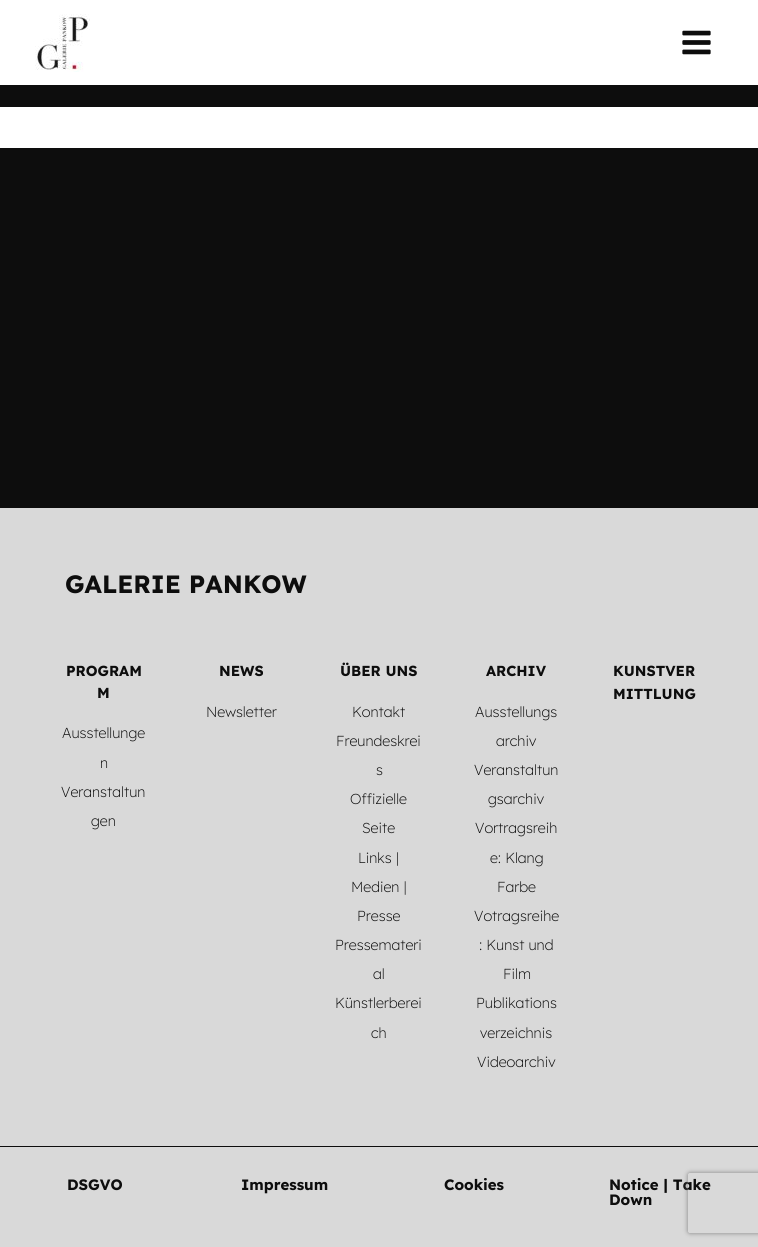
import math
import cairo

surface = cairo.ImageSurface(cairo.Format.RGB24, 758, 1247)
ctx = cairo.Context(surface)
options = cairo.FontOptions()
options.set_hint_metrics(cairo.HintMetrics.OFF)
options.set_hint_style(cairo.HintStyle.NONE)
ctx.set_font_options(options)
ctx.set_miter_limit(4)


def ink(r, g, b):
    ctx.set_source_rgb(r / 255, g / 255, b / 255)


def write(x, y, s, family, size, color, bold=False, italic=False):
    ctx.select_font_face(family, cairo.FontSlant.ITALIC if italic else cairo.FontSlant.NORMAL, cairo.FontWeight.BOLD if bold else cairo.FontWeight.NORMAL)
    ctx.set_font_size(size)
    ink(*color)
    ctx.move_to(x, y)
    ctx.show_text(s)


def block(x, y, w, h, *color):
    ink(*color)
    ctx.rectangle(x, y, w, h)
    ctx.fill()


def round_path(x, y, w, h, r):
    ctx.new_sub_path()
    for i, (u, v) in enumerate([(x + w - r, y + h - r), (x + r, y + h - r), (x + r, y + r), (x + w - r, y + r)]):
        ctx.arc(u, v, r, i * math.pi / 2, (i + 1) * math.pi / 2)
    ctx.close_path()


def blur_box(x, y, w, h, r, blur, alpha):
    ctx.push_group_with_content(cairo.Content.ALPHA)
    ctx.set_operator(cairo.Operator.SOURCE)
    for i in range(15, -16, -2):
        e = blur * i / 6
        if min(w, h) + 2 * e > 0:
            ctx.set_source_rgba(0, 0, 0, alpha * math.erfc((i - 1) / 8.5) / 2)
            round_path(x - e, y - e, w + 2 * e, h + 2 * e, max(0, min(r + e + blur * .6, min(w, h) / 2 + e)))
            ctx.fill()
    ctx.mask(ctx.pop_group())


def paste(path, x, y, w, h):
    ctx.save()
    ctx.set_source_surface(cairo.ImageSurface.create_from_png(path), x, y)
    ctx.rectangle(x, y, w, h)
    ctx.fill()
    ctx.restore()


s1 = dict(family="Lexend", size=25, color=(13, 13, 13), bold=True)
s2 = dict(family="Lexend", size=14.5, color=(13, 13, 13), bold=True)
s3 = dict(family="Lexend ExtraLight", size=14.5, color=(13, 13, 13))
s4 = dict(family="Lexend", size=15, color=(13, 13, 13), bold=True)

ink(13, 13, 13)
ctx.paint()
block(0, 0, 758, 85, 255, 255, 255)
paste("pic1.png", 35, 14, 55, 58)
paste("pic2.png", 682, 30, 29, 25)
block(0, 107, 758, 41, 255, 255, 255)
block(0, 508, 758, 739, 217, 217, 217)
write(65, 593, "GALERIE PANKOW", **s1)
write(66, 676, "PROGRAM", **s2)
write(97, 698, "M", **s2)
write(62, 738, "Ausstellunge", **s3)
write(100, 768, "n", **s3)
write(61, 797, "Veranstaltun", **s3)
write(91, 826, "gen", **s3)
write(219, 676, "NEWS", **s2)
write(206, 717, "Newsletter", **s3)
write(340, 676, "ÜBER UNS", **s2)
write(352, 717, "Kontakt", **s3)
write(336, 746, "Freundeskrei", **s3)
write(376, 775, "s", **s3)
write(350, 804, "Offizielle", **s3)
write(362, 833, "Seite", **s3)
write(358, 863, "Links |", **s3)
write(351, 892, "Medien |", **s3)
write(357, 921, "Presse", **s3)
write(335, 950, "Pressemateri", **s3)
write(373, 979, "al", **s3)
write(335, 1008, "Künstlerberei", **s3)
write(371, 1038, "ch", **s3)
write(486, 676, "ARCHIV", **s2)
write(475, 717, "Ausstellungs", **s3)
write(496, 746, "archiv", **s3)
write(474, 775, "Veranstaltun", **s3)
write(488, 804, "gsarchiv", **s3)
write(475, 833, "Vortragsreih", **s3)
write(490, 863, "e: Klang", **s3)
write(497, 892, "Farbe", **s3)
write(474, 921, "Votragsreihe", **s3)
write(479, 950, ": Kunst und", **s3)
write(503, 979, "Film", **s3)
write(476, 1008, "Publikations", **s3)
write(480, 1038, "verzeichnis", **s3)
write(477, 1067, "Videoarchiv", **s3)
write(613, 676, "KUNSTVER", **s2)
write(613, 699, "MITTLUNG", **s2)
block(0, 1146, 758, 1, 13, 13, 13)
write(67, 1190, "DSGVO", **s4)
write(241, 1190, "Impressum", **s4)
write(444, 1190, "Cookies", **s4)
write(609, 1190, "Notice | Take", **s4)
write(609, 1205, "Down", **s4)
ctx.save()
ctx.set_fill_rule(cairo.FillRule.EVEN_ODD)
ctx.new_path()
ctx.move_to(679, 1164)
ctx.line_to(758, 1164)
ctx.line_to(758, 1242)
ctx.line_to(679, 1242)
ctx.close_path()
ctx.move_to(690, 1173)
ctx.line_to(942, 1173)
ctx.curve_to(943, 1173, 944, 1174, 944, 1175)
ctx.line_to(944, 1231)
ctx.curve_to(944, 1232, 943, 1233, 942, 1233)
ctx.line_to(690, 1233)
ctx.curve_to(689, 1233, 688, 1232, 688, 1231)
ctx.line_to(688, 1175)
ctx.curve_to(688, 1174, 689, 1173, 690, 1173)
ctx.close_path()
ctx.clip()
ink(128, 128, 128)
blur_box(688, 1173, 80, 60, 2, 2.5, 1)
ctx.restore()
surface.write_to_png("screenshot.png")
